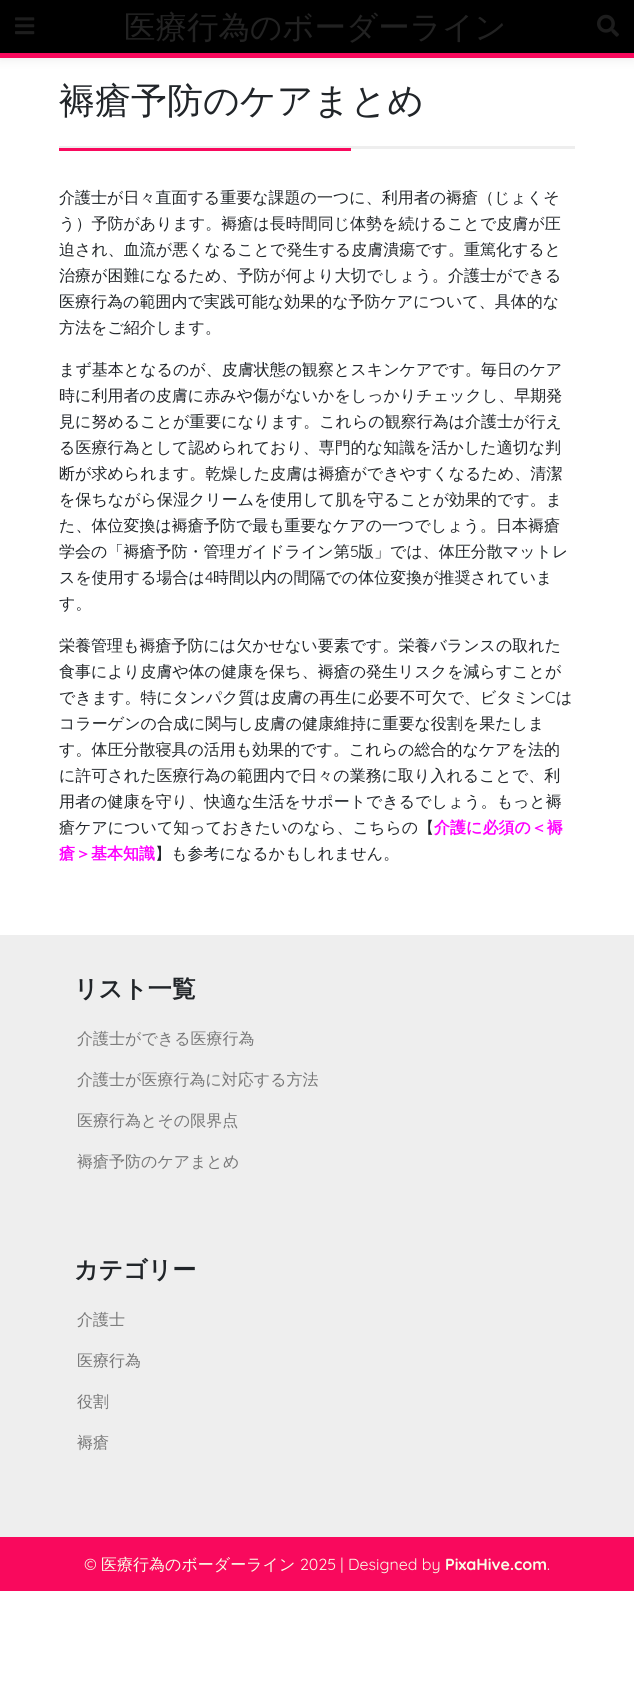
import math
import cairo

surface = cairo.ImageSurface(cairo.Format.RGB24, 634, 1702)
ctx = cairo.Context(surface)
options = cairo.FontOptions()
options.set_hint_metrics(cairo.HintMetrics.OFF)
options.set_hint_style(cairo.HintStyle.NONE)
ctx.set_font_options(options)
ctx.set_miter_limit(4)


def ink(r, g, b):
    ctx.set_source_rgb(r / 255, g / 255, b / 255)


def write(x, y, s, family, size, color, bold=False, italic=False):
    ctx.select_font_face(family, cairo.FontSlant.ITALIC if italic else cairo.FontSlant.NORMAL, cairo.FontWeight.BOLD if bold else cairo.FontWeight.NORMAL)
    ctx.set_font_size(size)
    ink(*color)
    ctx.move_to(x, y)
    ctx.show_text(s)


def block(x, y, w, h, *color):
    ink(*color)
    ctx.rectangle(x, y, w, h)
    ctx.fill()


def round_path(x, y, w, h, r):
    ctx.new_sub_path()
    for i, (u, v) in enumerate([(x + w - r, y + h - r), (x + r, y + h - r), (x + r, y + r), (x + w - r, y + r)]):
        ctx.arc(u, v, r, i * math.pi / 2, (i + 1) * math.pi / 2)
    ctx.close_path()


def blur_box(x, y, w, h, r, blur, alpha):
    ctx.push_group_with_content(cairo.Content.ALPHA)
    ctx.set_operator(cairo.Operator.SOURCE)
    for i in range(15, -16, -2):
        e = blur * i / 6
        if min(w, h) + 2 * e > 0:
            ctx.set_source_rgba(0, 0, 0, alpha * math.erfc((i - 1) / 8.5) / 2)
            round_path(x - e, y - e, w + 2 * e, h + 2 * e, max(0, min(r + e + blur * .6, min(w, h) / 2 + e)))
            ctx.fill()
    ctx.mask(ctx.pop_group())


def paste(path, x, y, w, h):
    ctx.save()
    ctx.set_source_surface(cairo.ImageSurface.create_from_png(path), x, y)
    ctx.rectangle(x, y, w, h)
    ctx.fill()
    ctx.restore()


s1 = dict(family="WenQuanYi Zen Hei Medium", size=31.5, color=(34, 34, 34))
s2 = dict(family="WenQuanYi Zen Hei Medium", size=36, color=(33, 37, 41))
s3 = dict(family="WenQuanYi Zen Hei Medium", size=16, color=(33, 37, 41))
s4 = dict(family="Quicksand", size=16, color=(33, 37, 41))
s5 = dict(family="WenQuanYi Zen Hei", size=16, color=(255, 0, 255), bold=True)
s6 = dict(family="WenQuanYi Zen Hei", size=24, color=(33, 37, 41), bold=True)
s7 = dict(family="WenQuanYi Zen Hei Medium", size=16, color=(119, 119, 119))
s8 = dict(family="Quicksand", size=16, color=(249, 255, 231))
s9 = dict(family="WenQuanYi Zen Hei Medium", size=16, color=(249, 255, 231))
s10 = dict(family="Quicksand", size=16, color=(249, 255, 231), bold=True)

ink(255, 255, 255)
ctx.paint()
ink(238, 238, 238)
blur_box(0, 2, 634, 58, 0, 5, 1)
block(0, 0, 634, 53, 0, 0, 0)
block(0, 53, 634, 5, 249, 9, 93)
paste("pic1.png", 15, 17, 20, 18)
write(124, 38, "医療行為のボーダーライン", **s1)
paste("pic2.png", 597, 14, 22, 23)
block(59, 146, 516, 3, 238, 238, 238)
write(59, 113, "褥瘡予防のケアまとめ", **s2)
block(59, 148, 292, 3, 249, 9, 93)
write(59, 203, "介護士が日々直面する重要な課題の一つに、利用者の褥瘡（じょくそ", **s3)
write(59, 229, "う）予防があります。褥瘡は長時間同じ体勢を続けることで皮膚が圧", **s3)
write(59, 255, "迫され、血流が悪くなることで発生する皮膚潰瘍です。重篤化すると", **s3)
write(59, 281, "治療が困難になるため、予防が何より大切でしょう。介護士ができる", **s3)
write(59, 307, "医療行為の範囲内で実践可能な効果的な予防ケアについて、具体的な", **s3)
write(59, 333, "方法をご紹介します。", **s3)
write(59, 375, "まず基本となるのが、皮膚状態の観察とスキンケアです。毎日のケア", **s3)
write(59, 401, "時に利用者の皮膚に赤みや傷がないかをしっかりチェックし、早期発", **s3)
write(59, 427, "見に努めることが重要になります。これらの観察行為は介護士が行え", **s3)
write(59, 453, "る医療行為として認められており、専門的な知識を活かした適切な判", **s3)
write(59, 479, "断が求められます。乾燥した皮膚は褥瘡ができやすくなるため、清潔", **s3)
write(59, 505, "を保ちながら保湿クリームを使用して肌を守ることが効果的です。ま", **s3)
write(59, 531, "た、体位変換は褥瘡予防で最も重要なケアの一つでしょう。日本褥瘡", **s3)
write(59, 557, "学会の「褥瘡予防・管理ガイドライン第", **s3)
write(350, 557, "5", **s4)
write(358, 557, "版」では、体圧分散マットレ", **s3)
write(59, 583, "スを使用する場合は", **s3)
write(205, 583, "4", **s4)
write(213, 583, "時間以内の間隔での体位変換が推奨されていま", **s3)
write(59, 609, "す。", **s3)
write(59, 651, "栄養管理も褥瘡予防には欠かせない要素です。栄養バランスの取れた", **s3)
write(59, 677, "食事により皮膚や体の健康を保ち、褥瘡の発生リスクを減らすことが", **s3)
write(59, 703, "できます。特にタンパク質は皮膚の再生に必要不可欠で、ビタミン", **s3)
write(545, 703, "C", **s4)
write(556, 703, "は", **s3)
write(59, 729, "コラーゲンの合成に関与し皮膚の健康維持に重要な役割を果たしま", **s3)
write(59, 755, "す。体圧分散寝具の活用も効果的です。これらの総合的なケアを法的", **s3)
write(59, 781, "に許可された医療行為の範囲内で日々の業務に取り入れることで、利", **s3)
write(59, 807, "用者の健康を守り、快適な生活をサポートできるでしょう。もっと褥", **s3)
write(59, 833, "瘡ケアについて知っておきたいのなら、こちらの【", **s3)
write(434, 833, "介護に必須の＜褥", **s5)
write(59, 859, "瘡＞基本知識", **s5)
write(155, 859, "】も参考になるかもしれません。", **s3)
block(0, 935, 634, 602, 238, 238, 238)
write(74, 997, "リスト一覧", **s6)
write(77, 1044, "介護士ができる医療行為", **s7)
write(77, 1085, "介護士が医療行為に対応する方法", **s7)
write(77, 1126, "医療行為とその限界点", **s7)
write(77, 1167, "褥瘡予防のケアまとめ", **s7)
write(74, 1278, "カテゴリー", **s6)
write(77, 1325, "介護士", **s7)
write(77, 1366, "医療行為", **s7)
write(77, 1407, "役割", **s7)
write(77, 1448, "褥瘡", **s7)
block(0, 1537, 634, 54, 249, 9, 93)
write(84, 1570, "©", **s8)
write(101, 1570, "医療行為のボーダーライン", **s9)
write(300, 1570, "2025 | Designed by", **s8)
write(445, 1570, "PixaHive.com", **s10)
write(547, 1570, ".", **s8)
surface.write_to_png("screenshot.png")
